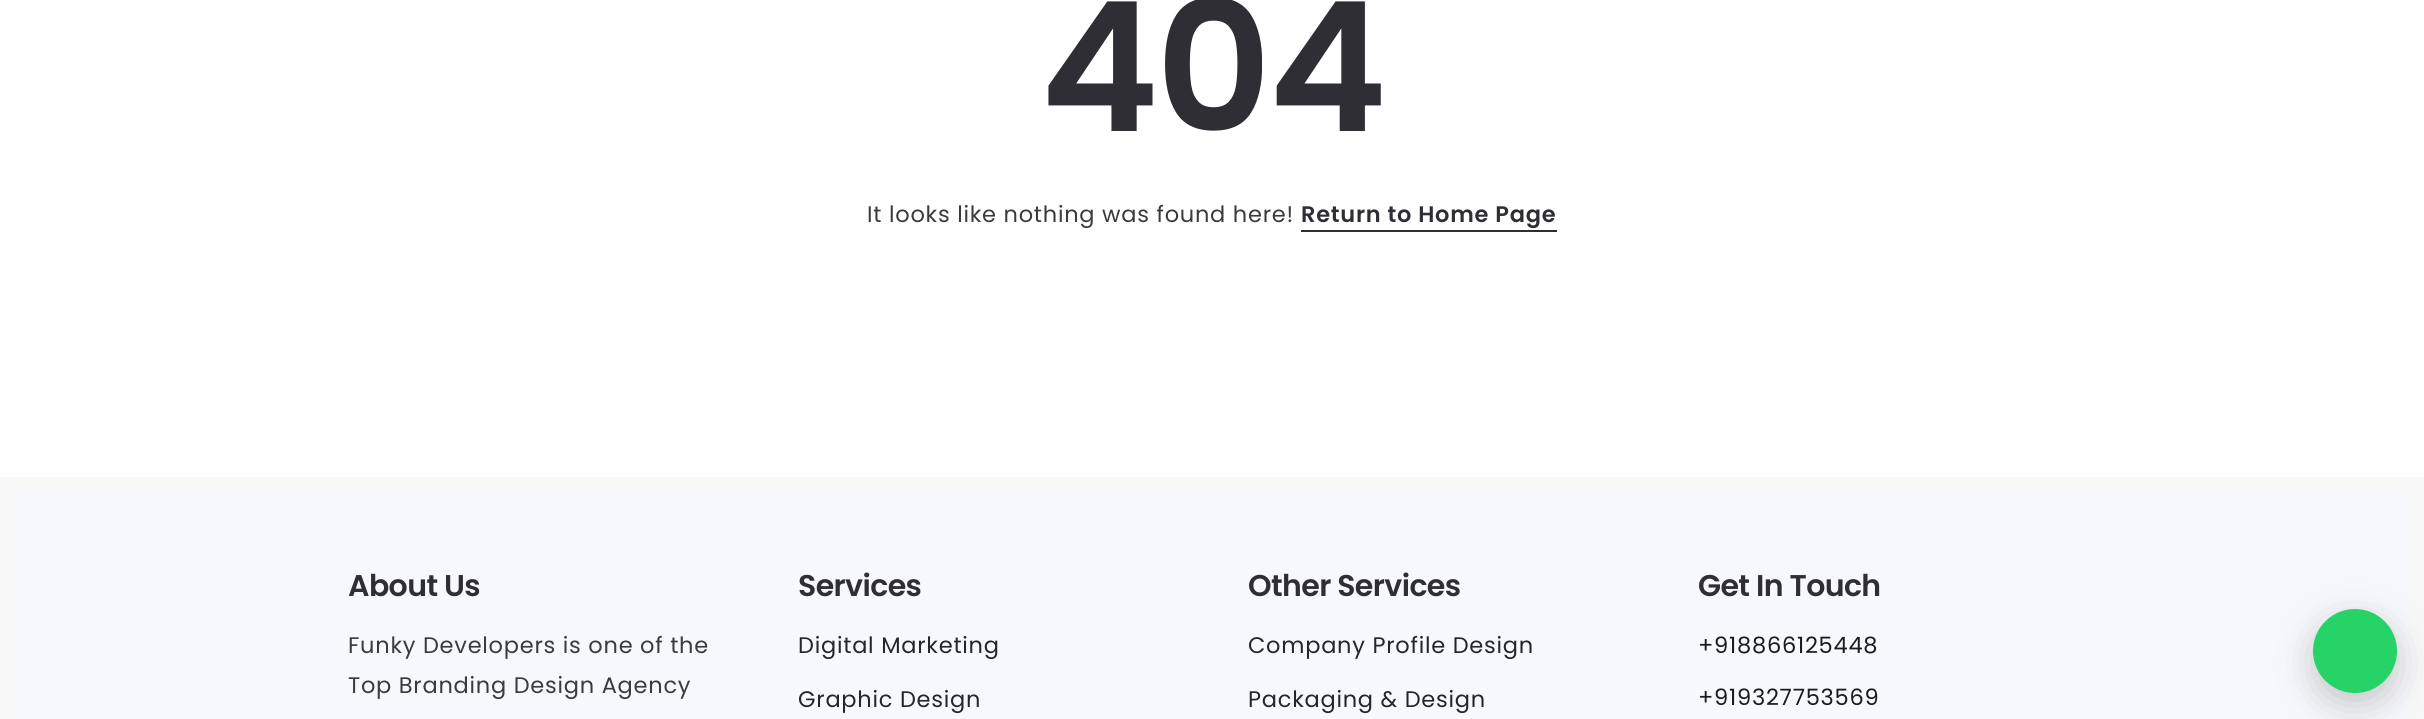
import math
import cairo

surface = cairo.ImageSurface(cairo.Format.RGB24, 2424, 719)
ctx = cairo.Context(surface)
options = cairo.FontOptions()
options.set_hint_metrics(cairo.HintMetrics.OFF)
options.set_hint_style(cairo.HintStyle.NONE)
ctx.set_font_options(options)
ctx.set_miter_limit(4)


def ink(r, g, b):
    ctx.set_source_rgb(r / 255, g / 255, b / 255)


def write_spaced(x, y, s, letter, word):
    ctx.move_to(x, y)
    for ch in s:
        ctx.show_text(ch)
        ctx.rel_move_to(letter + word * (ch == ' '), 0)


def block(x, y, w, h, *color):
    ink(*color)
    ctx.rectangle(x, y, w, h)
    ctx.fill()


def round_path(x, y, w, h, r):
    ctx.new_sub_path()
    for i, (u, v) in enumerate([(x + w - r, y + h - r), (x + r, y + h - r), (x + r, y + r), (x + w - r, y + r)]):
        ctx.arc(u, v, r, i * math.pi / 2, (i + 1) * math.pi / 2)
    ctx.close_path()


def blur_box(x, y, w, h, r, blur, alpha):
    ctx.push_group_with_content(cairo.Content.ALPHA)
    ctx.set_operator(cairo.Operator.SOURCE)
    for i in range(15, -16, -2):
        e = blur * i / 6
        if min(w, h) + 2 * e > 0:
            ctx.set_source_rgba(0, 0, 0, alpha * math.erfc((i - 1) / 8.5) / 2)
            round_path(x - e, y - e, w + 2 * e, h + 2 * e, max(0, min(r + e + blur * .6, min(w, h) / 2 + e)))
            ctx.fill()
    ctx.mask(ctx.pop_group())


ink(255, 255, 255)
ctx.paint()
ctx.select_font_face("Poppins SemiBold")
ctx.set_font_size(180)
ink(47, 46, 53)
write_spaced(1040, 131, "404", -3.5, 0)
ctx.select_font_face("Poppins")
ctx.set_font_size(22.5)
ink(59, 59, 59)
write_spaced(867, 222, "It looks like nothing was found here!", 0.75, 0)
ctx.select_font_face("Poppins SemiBold")
ink(47, 46, 53)
write_spaced(1301, 222, "Return to Home Page", 0.75, 0)
block(1301, 230, 256, 2, 47, 46, 53)
block(0, 477, 2424, 242, 248, 248, 248)
block(15, 492, 2394, 227, 247, 248, 251)
ctx.set_font_size(30)
ink(47, 46, 53)
write_spaced(348, 596, "About Us", -0.6, 0)
ctx.select_font_face("Poppins")
ctx.set_font_size(22.5)
ink(59, 59, 59)
write_spaced(348, 653, "Funky Developers is one of the", 0.75, 0)
write_spaced(348, 693, "Top Branding Design Agency", 0.75, 0)
ctx.select_font_face("Poppins SemiBold")
ctx.set_font_size(30)
ink(47, 46, 53)
write_spaced(798, 596, "Services", -0.6, 0)
ctx.select_font_face("Poppins")
ctx.set_font_size(22.5)
ink(34, 39, 43)
write_spaced(798, 653, "Digital Marketing", 0.75, 0)
write_spaced(798, 707, "Graphic Design", 0.75, 0)
ctx.select_font_face("Poppins SemiBold")
ctx.set_font_size(30)
ink(47, 46, 53)
write_spaced(1248, 596, "Other Services", -0.6, 0)
ctx.select_font_face("Poppins")
ctx.set_font_size(22.5)
ink(34, 39, 43)
write_spaced(1248, 653, "Company Profile Design", 0.75, 0)
write_spaced(1248, 707, "Packaging & Design", 0.75, 0)
ctx.select_font_face("Poppins SemiBold")
ctx.set_font_size(30)
ink(47, 46, 53)
write_spaced(1698, 596, "Get In Touch", -0.6, 0)
ctx.select_font_face("Poppins")
ctx.set_font_size(22.5)
ink(27, 27, 27)
write_spaced(1698, 653, "+918866125448", 0.75, 0)
write_spaced(1698, 705, "+919327753569", 0.75, 0)
ink(0, 0, 0)
blur_box(2313, 621, 84, 84, 42, 18, 0.2)
ink(37, 211, 102)
ctx.arc(2355, 651, 42, 0, 2 * math.pi)
ctx.fill()
surface.write_to_png("screenshot.png")
